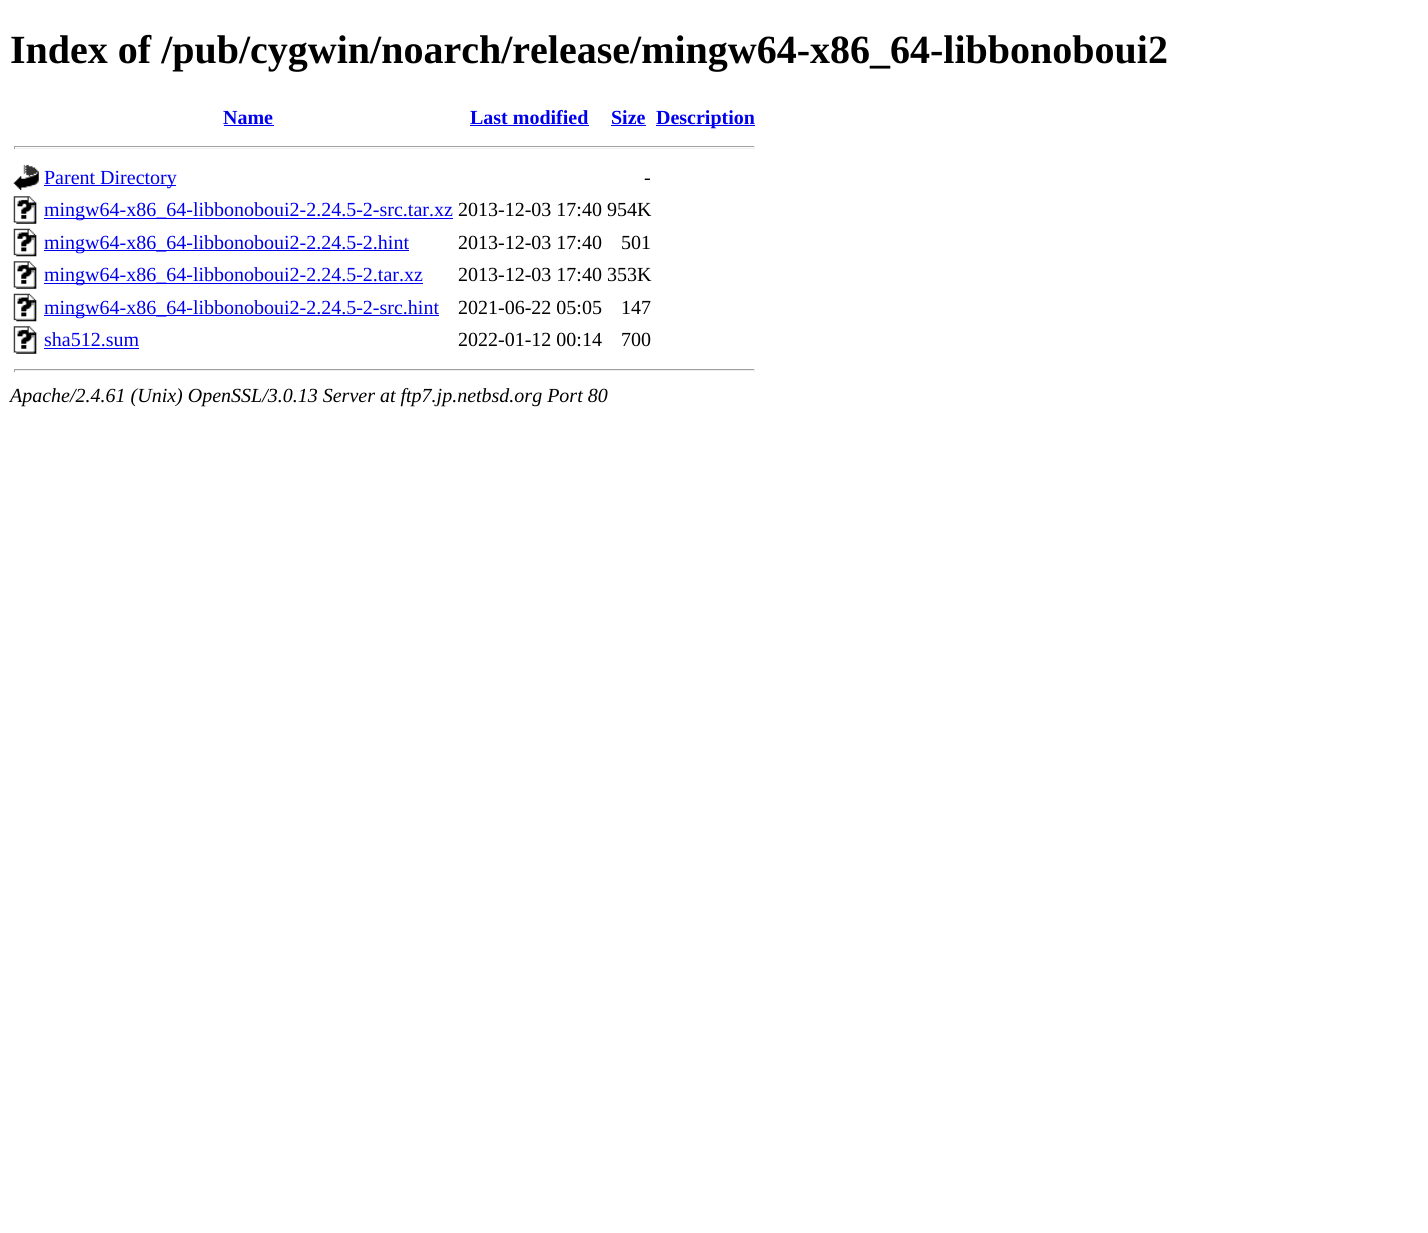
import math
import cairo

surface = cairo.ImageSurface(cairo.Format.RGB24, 1428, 1233)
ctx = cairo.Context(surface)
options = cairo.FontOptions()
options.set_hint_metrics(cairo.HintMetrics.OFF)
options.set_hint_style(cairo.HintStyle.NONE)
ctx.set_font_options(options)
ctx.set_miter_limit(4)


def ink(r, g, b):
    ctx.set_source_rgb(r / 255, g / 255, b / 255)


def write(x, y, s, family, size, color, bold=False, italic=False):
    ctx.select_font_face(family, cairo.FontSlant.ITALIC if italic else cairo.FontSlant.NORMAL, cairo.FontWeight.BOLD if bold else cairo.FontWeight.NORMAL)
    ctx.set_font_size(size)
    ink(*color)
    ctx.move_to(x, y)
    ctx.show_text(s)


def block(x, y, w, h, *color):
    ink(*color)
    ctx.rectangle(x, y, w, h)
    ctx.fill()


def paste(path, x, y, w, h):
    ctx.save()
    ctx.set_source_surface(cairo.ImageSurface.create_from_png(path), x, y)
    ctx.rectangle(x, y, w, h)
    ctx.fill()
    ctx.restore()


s1 = dict(family="Liberation Serif", size=40, color=(0, 0, 0), bold=True)
s2 = dict(family="Liberation Serif", size=20, color=(0, 0, 238), bold=True)
s3 = dict(family="Liberation Serif", size=20, color=(0, 0, 238))
s4 = dict(family="Liberation Serif", size=20, color=(0, 0, 0))
s5 = dict(family="Liberation Serif", size=20, color=(0, 0, 0), italic=True)

ink(255, 255, 255)
ctx.paint()
write(10, 63, "Index of /pub/cygwin/noarch/release/mingw64-x86_64-libbonoboui2", **s1)
write(223, 124, "Name", **s2)
block(224, 125, 50, 1, 0, 0, 238)
write(470, 124, "Last modified", **s2)
block(470, 125, 119, 1, 0, 0, 238)
write(611, 124, "Size", **s2)
block(611, 125, 35, 1, 0, 0, 238)
block(656, 125, 99, 1, 0, 0, 238)
write(656, 124, "Description", **s2)
block(14, 146, 741, 1, 159, 159, 159)
block(754, 146, 1, 3, 238, 238, 238)
block(14, 148, 741, 1, 238, 238, 238)
block(14, 146, 1, 3, 159, 159, 159)
paste("pic1.png", 13, 164, 26, 27)
block(44, 185, 132, 1, 0, 0, 238)
write(44, 184, "Parent Directory", **s3)
write(644, 184, "-", **s4)
paste("pic2.png", 13, 196, 24, 28)
block(44, 218, 409, 1, 0, 0, 238)
write(44, 216, "mingw64-x86_64-libbonoboui2-2.24.5-2-src.tar.xz", **s3)
write(458, 216, "2013-12-03 17:40 954K", **s4)
paste("pic3.png", 13, 228, 24, 29)
block(44, 250, 365, 1, 0, 0, 238)
write(44, 249, "mingw64-x86_64-libbonoboui2-2.24.5-2.hint", **s3)
write(458, 249, "2013-12-03 17:40", **s4)
write(621, 249, "501", **s4)
paste("pic2.png", 13, 261, 24, 28)
block(44, 283, 379, 1, 0, 0, 238)
write(44, 281, "mingw64-x86_64-libbonoboui2-2.24.5-2.tar.xz", **s3)
write(458, 281, "2013-12-03 17:40 353K", **s4)
paste("pic4.png", 13, 293, 24, 29)
block(44, 315, 395, 1, 0, 0, 238)
write(44, 314, "mingw64-x86_64-libbonoboui2-2.24.5-2-src.hint", **s3)
write(458, 314, "2021-06-22 05:05", **s4)
write(621, 314, "147", **s4)
paste("pic2.png", 13, 326, 24, 28)
write(44, 346, "sha512.sum", **s3)
block(44, 348, 95, 1, 0, 0, 238)
write(458, 346, "2022-01-12 00:14", **s4)
write(621, 346, "700", **s4)
block(14, 369, 741, 1, 159, 159, 159)
block(754, 369, 1, 3, 238, 238, 238)
block(14, 370, 741, 1, 238, 238, 238)
block(14, 369, 1, 3, 159, 159, 159)
write(10, 402, "Apache/2.4.61 (Unix) OpenSSL/3.0.13 Server at ftp7.jp.netbsd.org Port 80", **s5)
surface.write_to_png("screenshot.png")
